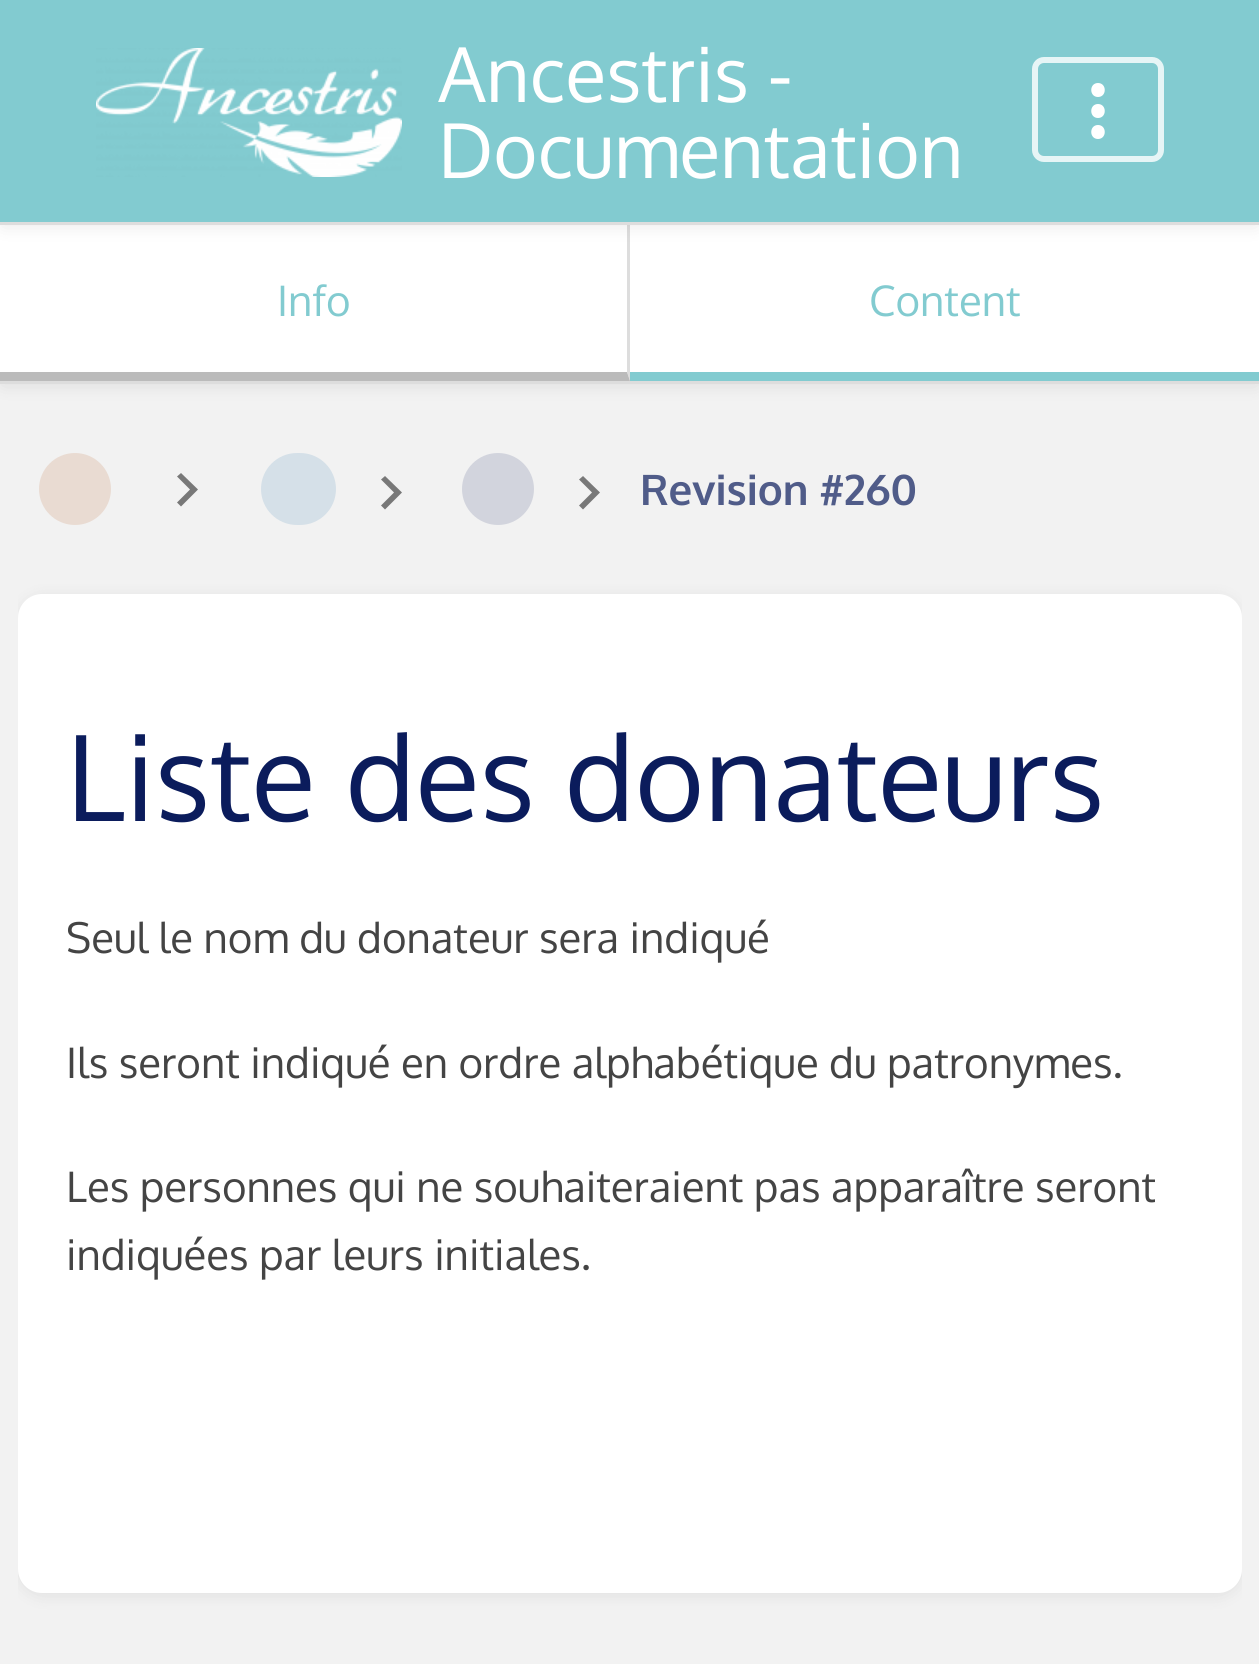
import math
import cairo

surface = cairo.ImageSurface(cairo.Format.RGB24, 1259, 1664)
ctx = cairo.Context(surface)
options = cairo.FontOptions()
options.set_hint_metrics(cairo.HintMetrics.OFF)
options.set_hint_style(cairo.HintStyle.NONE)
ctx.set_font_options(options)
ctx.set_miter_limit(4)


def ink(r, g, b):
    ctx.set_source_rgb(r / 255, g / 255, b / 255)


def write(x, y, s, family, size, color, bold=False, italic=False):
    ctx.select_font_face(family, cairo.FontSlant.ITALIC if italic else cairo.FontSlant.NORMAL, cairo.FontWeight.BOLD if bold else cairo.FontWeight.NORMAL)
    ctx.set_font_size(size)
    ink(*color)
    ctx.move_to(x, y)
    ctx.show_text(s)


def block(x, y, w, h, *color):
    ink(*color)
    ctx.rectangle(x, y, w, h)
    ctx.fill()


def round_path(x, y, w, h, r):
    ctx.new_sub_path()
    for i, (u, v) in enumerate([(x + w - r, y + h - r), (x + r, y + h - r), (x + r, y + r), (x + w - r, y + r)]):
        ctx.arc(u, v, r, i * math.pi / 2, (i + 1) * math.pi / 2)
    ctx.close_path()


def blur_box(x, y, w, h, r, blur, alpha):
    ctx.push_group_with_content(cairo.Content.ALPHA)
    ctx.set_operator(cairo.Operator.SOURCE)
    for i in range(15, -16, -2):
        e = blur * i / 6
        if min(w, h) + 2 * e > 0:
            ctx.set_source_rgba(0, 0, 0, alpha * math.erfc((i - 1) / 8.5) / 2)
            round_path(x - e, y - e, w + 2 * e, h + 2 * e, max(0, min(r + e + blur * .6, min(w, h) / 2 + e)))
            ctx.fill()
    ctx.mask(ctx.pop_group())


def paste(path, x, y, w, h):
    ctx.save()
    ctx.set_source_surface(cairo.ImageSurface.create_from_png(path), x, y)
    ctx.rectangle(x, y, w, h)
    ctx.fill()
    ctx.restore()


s1 = dict(family="Oxygen", size=75.5, color=(255, 255, 255))
s2 = dict(family="Oxygen", size=42, color=(130, 203, 208))
s3 = dict(family="Oxygen", size=42, color=(80, 92, 137), bold=True)
s4 = dict(family="Oxygen", size=118.75, color=(11, 28, 92))
s5 = dict(family="Oxygen", size=42, color=(68, 68, 68))

ink(242, 242, 242)
ctx.paint()
ink(0, 0, 0)
blur_box(3, 231, 1254, 153, 0, 9, 0.1)
block(0, 225, 1259, 156, 255, 255, 255)
ink(221, 221, 221)
ctx.new_path()
ctx.move_to(630, 225)
ctx.line_to(630, 381)
ctx.line_to(627, 372)
ctx.line_to(627, 225)
ctx.close_path()
ctx.fill()
ink(0, 0, 0)
blur_box(3, 6, 1254, 219, 0, 9, 0.1)
block(0, 0, 1259, 222, 130, 203, 208)
block(0, 222, 1259, 3, 221, 221, 221)
paste("pic1.png", 96, 48, 306, 129)
write(438, 102, "Ancestris -", **s1)
write(438, 178, "Documentation", **s1)
round_path(1035, 60, 126, 99, 9)
ink(230, 245, 246)
ctx.set_line_width(6)
ctx.stroke()
ink(255, 255, 255)
ctx.new_path()
ctx.move_to(1098, 97)
ctx.curve_to(1107, 97, 1107, 83, 1098, 83)
ctx.curve_to(1089, 83, 1089, 97, 1098, 97)
ctx.move_to(1098, 104)
ctx.curve_to(1089, 104, 1089, 118, 1098, 118)
ctx.curve_to(1107, 118, 1107, 104, 1098, 104)
ctx.move_to(1098, 125)
ctx.curve_to(1089, 125, 1089, 139, 1098, 139)
ctx.curve_to(1107, 139, 1107, 125, 1098, 125)
ctx.fill()
block(0, 381, 1259, 3, 221, 221, 221)
ink(187, 187, 187)
ctx.new_path()
ctx.move_to(630, 381)
ctx.line_to(0, 381)
ctx.line_to(0, 372)
ctx.line_to(627, 372)
ctx.close_path()
ctx.fill()
write(277, 316, "Info", **s2)
block(630, 372, 629, 9, 130, 203, 208)
write(869, 316, "Content", **s2)
ink(233, 219, 210)
ctx.new_path()
ctx.arc(75, 489, 36, 0, 2 * math.pi)
ctx.fill()
ink(120, 120, 120)
ctx.new_path()
ctx.move_to(181, 473)
ctx.line_to(177, 476.5)
ctx.line_to(190, 489.5)
ctx.line_to(177, 502.5)
ctx.line_to(181, 506.5)
ctx.line_to(198, 489.5)
ctx.close_path()
ctx.fill()
ink(213, 224, 232)
round_path(261, 453, 75, 72, 36)
ctx.fill()
ink(120, 120, 120)
ctx.new_path()
ctx.move_to(385, 476)
ctx.line_to(381, 479.5)
ctx.line_to(394, 492.5)
ctx.line_to(381, 505.5)
ctx.line_to(385, 509.5)
ctx.line_to(402, 492.5)
ctx.close_path()
ctx.fill()
ink(210, 212, 221)
ctx.arc(498, 489, 36, 0, 2 * math.pi)
ctx.fill()
ink(120, 120, 120)
ctx.new_path()
ctx.move_to(583, 476)
ctx.line_to(579, 479.5)
ctx.line_to(592, 492.5)
ctx.line_to(579, 505.5)
ctx.line_to(583, 509.5)
ctx.line_to(600, 492.5)
ctx.close_path()
ctx.fill()
write(640, 505, "Revision #260", **s3)
ctx.save()
ctx.rectangle(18, 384, 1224, 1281)
ctx.clip()
ink(0, 0, 0)
blur_box(21, 600, 1218, 993, 21, 9, 0.1)
ctx.restore()
ink(255, 255, 255)
round_path(18, 594, 1224, 999, 24)
ctx.fill()
write(66, 821, "Liste des donateurs", **s4)
write(66, 953, "Seul le nom du donateur sera indiqué", **s5)
write(66, 1078, "Ils seront indiqué en ordre alphabétique du patronymes.", **s5)
write(66, 1202, "Les personnes qui ne souhaiteraient pas apparaître seront", **s5)
write(66, 1270, "indiquées par leurs initiales.", **s5)
surface.write_to_png("screenshot.png")
